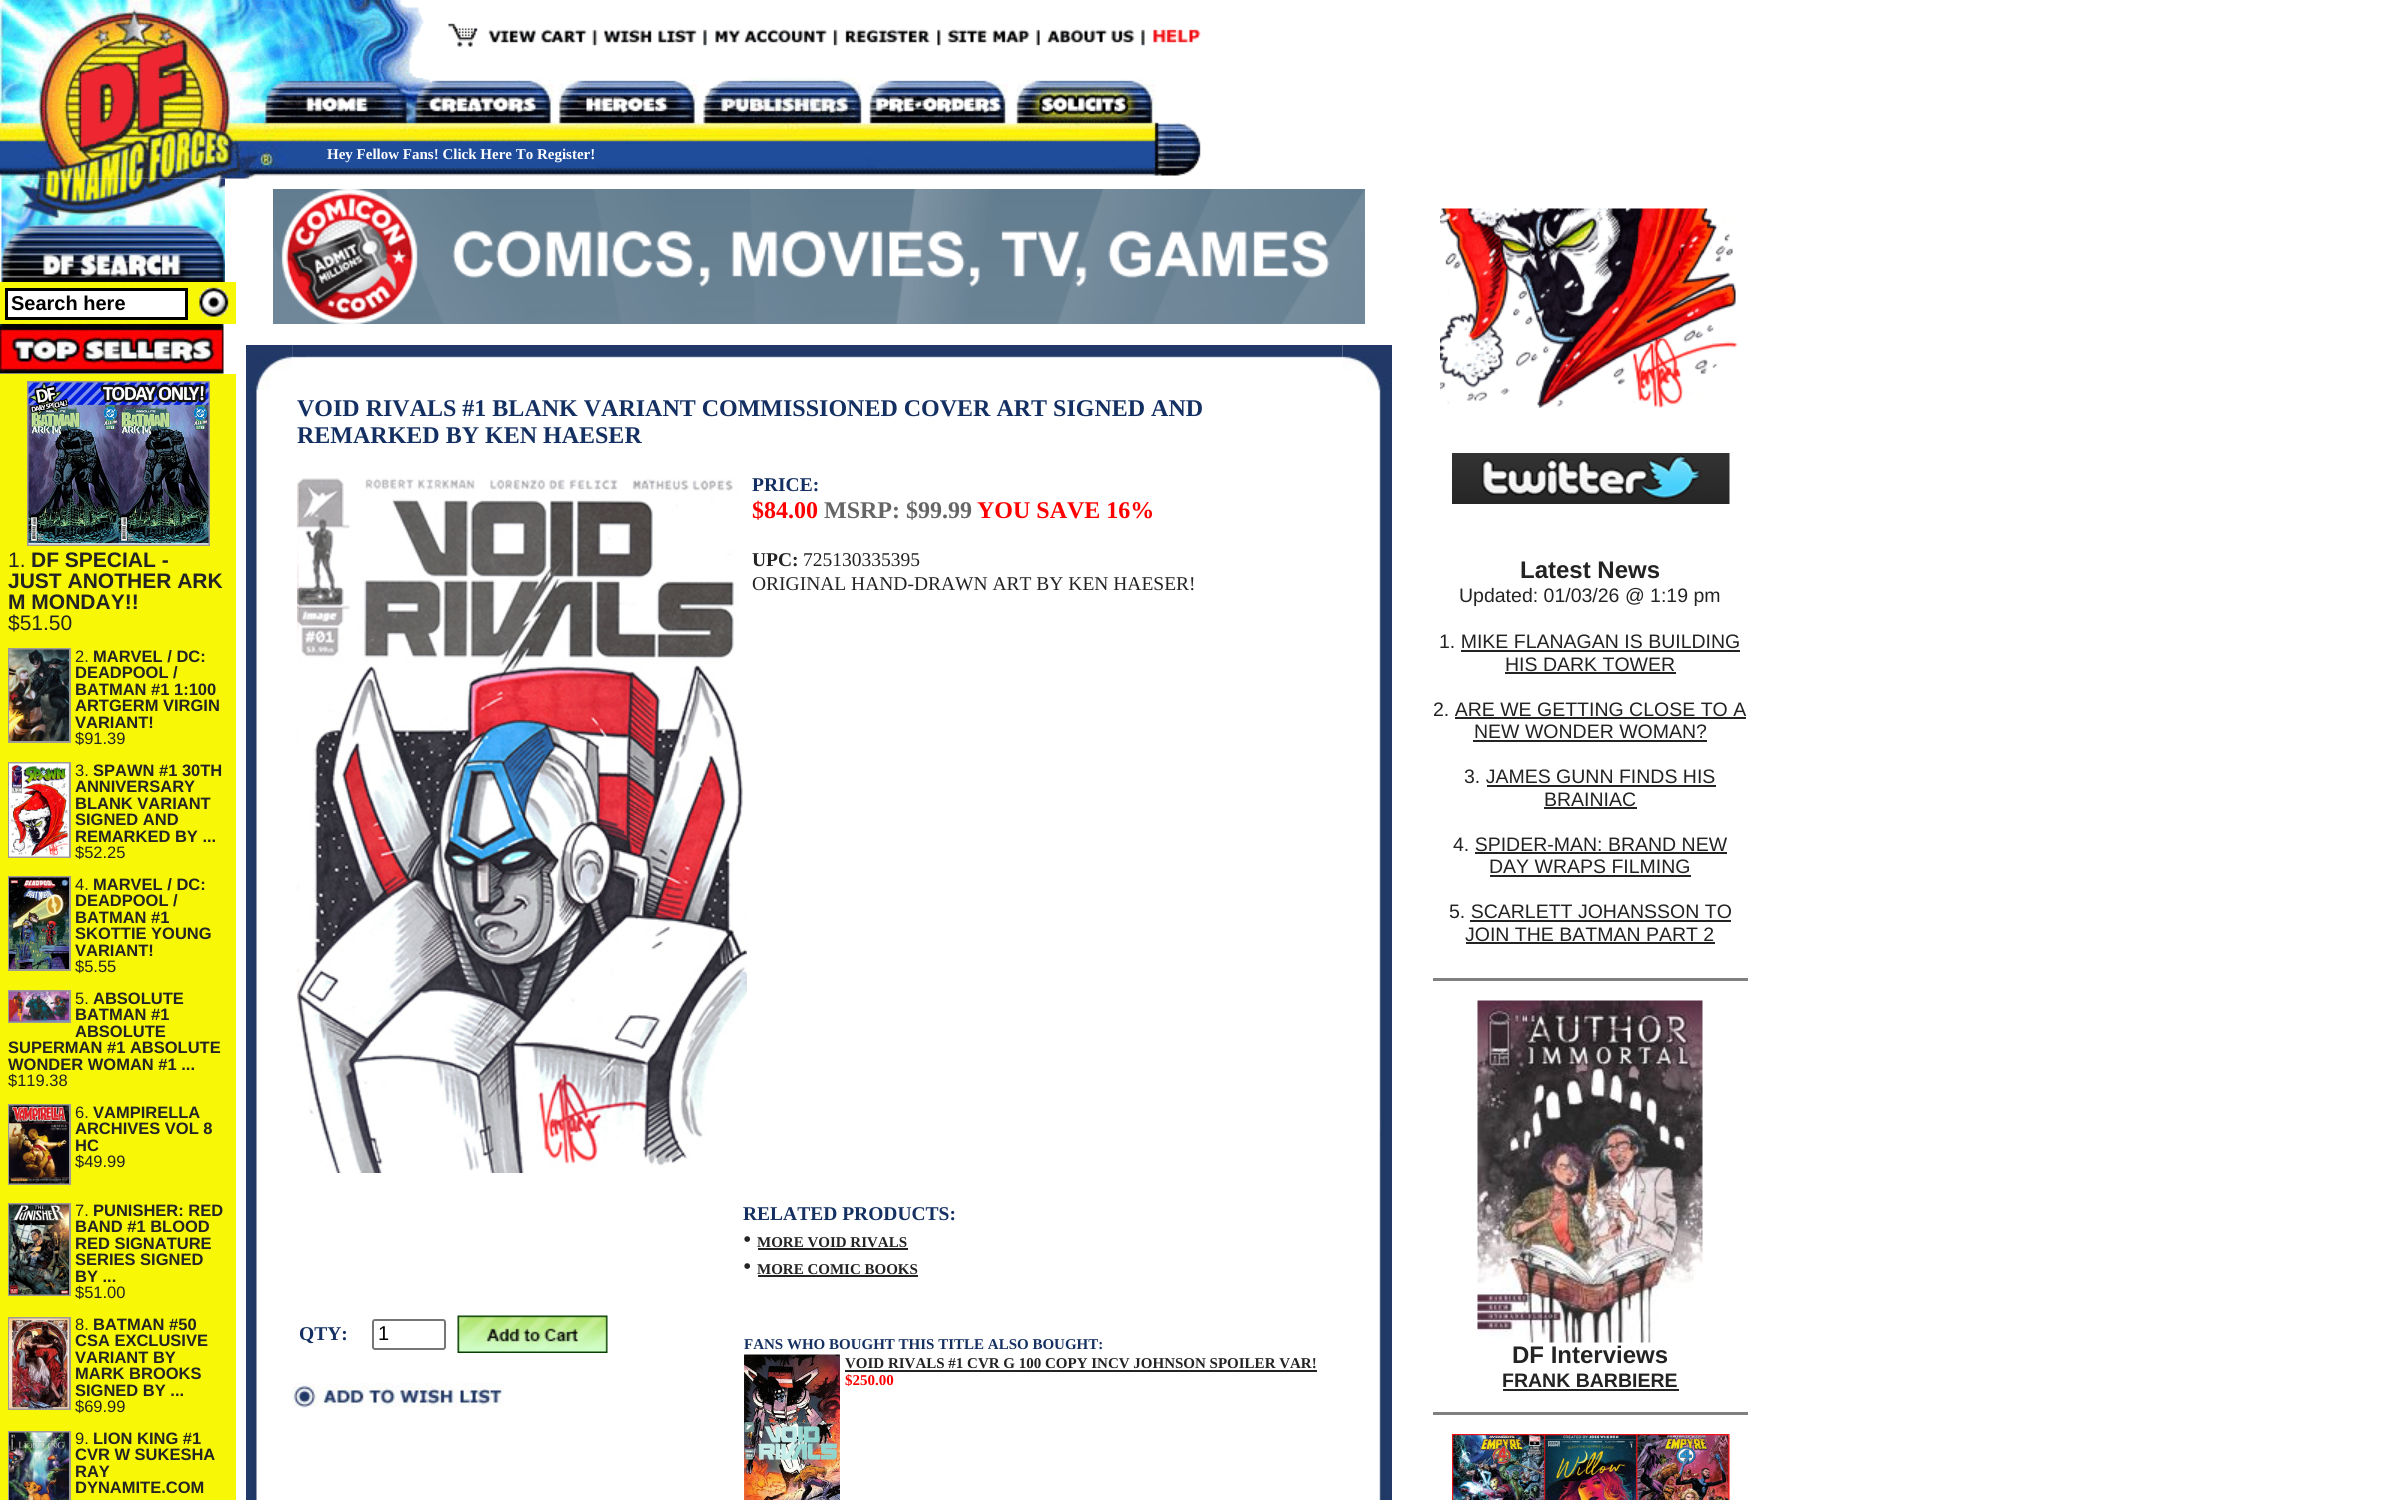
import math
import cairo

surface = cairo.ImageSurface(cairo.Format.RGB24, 2401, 1500)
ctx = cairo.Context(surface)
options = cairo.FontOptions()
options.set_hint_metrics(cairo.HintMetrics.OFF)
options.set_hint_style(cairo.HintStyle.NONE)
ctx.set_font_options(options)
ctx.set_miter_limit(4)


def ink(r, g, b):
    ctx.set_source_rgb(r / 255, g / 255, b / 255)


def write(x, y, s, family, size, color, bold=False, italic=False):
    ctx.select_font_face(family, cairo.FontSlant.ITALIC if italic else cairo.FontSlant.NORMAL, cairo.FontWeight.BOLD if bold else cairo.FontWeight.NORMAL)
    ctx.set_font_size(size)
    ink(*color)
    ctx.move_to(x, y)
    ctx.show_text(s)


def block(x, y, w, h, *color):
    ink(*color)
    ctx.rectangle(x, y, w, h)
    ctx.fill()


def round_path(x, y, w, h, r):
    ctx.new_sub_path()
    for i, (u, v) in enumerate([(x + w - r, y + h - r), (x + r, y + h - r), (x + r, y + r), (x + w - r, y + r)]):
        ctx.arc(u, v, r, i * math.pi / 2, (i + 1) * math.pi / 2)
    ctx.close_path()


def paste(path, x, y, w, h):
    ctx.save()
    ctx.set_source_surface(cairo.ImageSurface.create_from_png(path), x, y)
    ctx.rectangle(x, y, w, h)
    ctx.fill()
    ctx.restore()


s1 = dict(family="Liberation Serif", size=15, color=(255, 255, 255), bold=True)
s2 = dict(family="Liberation Sans", size=20, color=(0, 0, 0), bold=True)
s3 = dict(family="Liberation Sans", size=21, color=(35, 35, 35))
s4 = dict(family="Liberation Sans", size=21, color=(35, 35, 35), bold=True)
s5 = dict(family="Liberation Sans", size=16.5, color=(35, 35, 35))
s6 = dict(family="Liberation Sans", size=16.5, color=(35, 35, 35), bold=True)
s7 = dict(family="Liberation Serif", size=24, color=(20, 48, 98), bold=True)
s8 = dict(family="Liberation Serif", size=19.5, color=(20, 48, 98), bold=True)
s9 = dict(family="Liberation Serif", size=24, color=(255, 0, 0), bold=True)
s10 = dict(family="Liberation Serif", size=24, color=(102, 102, 102), bold=True)
s11 = dict(family="Liberation Serif", size=19.5, color=(35, 35, 35), bold=True)
s12 = dict(family="Liberation Serif", size=19.5, color=(35, 35, 35))
s13 = dict(family="Liberation Sans", size=20, color=(0, 0, 0))
s14 = dict(family="Liberation Serif", size=24, color=(35, 35, 35))
s15 = dict(family="Liberation Serif", size=15, color=(35, 35, 35), bold=True)
s16 = dict(family="Liberation Serif", size=15, color=(20, 48, 98), bold=True)
s17 = dict(family="Liberation Serif", size=15, color=(255, 0, 0), bold=True)
s18 = dict(family="Liberation Sans", size=24, color=(35, 35, 35), bold=True)
s19 = dict(family="Liberation Sans", size=19.5, color=(35, 35, 35))
s20 = dict(family="Liberation Sans", size=19.5, color=(35, 35, 35), bold=True)

ink(255, 255, 255)
ctx.paint()
paste("pic1.png", 0, 0, 1201, 179)
write(327, 159, "Hey Fellow Fans! Click Here To Register!", **s1)
paste("pic2.png", 0, 178, 225, 104)
block(0, 282, 236, 42, 248, 248, 6)
ink(255, 255, 255)
ctx.rectangle(6.5, 289.5, 180, 29)
ctx.fill_preserve()
ink(0, 0, 0)
ctx.set_line_width(3)
ctx.stroke()
write(11, 310, "Search here", **s2)
paste("pic3.png", 199, 287, 30, 30)
paste("pic4.png", 0, 324, 224, 50)
block(0, 374, 236, 1126, 248, 248, 6)
ctx.rectangle(28, 382, 181, 163)
ink(157, 153, 153)
ctx.set_line_width(2)
ctx.stroke()
paste("pic5.png", 28, 382, 181, 163)
write(8, 567, "1.", **s3)
write(31, 567, "DF SPECIAL -", **s4)
write(8, 588, "JUST ANOTHER ARK", **s4)
write(8, 609, "M MONDAY!!", **s4)
write(8, 630, "$51.50", **s3)
ctx.rectangle(9, 649, 61, 93)
ink(157, 153, 153)
ctx.stroke()
paste("pic6.png", 9, 649, 60, 92)
write(75, 662, "2.", **s5)
write(93, 662, "MARVEL / DC:", **s6)
write(75, 678, "DEADPOOL /", **s6)
write(75, 695, "BATMAN #1 1:100", **s6)
write(75, 711, "ARTGERM VIRGIN", **s6)
write(75, 728, "VARIANT!", **s6)
write(75, 744, "$91.39", **s5)
ctx.rectangle(9, 763, 61, 94)
ink(157, 153, 153)
ctx.stroke()
paste("pic7.png", 9, 763, 60, 94)
write(75, 776, "3.", **s5)
write(93, 776, "SPAWN #1 30TH", **s6)
write(75, 792, "ANNIVERSARY", **s6)
write(75, 809, "BLANK VARIANT", **s6)
write(75, 825, "SIGNED AND", **s6)
write(75, 842, "REMARKED BY ...", **s6)
write(75, 858, "$52.25", **s5)
ctx.rectangle(9, 877, 61, 93)
ink(157, 153, 153)
ctx.stroke()
paste("pic8.png", 9, 877, 60, 92)
write(75, 890, "4.", **s5)
write(93, 890, "MARVEL / DC:", **s6)
write(75, 906, "DEADPOOL /", **s6)
write(75, 923, "BATMAN #1", **s6)
write(75, 939, "SKOTTIE YOUNG", **s6)
write(75, 956, "VARIANT!", **s6)
write(75, 972, "$5.55", **s5)
ctx.rectangle(9, 991, 61, 31)
ink(157, 153, 153)
ctx.stroke()
paste("pic9.png", 9, 991, 60, 31)
write(75, 1004, "5.", **s5)
write(93, 1004, "ABSOLUTE", **s6)
write(75, 1020, "BATMAN #1", **s6)
write(75, 1037, "ABSOLUTE", **s6)
write(8, 1053, "SUPERMAN #1 ABSOLUTE", **s6)
write(8, 1070, "WONDER WOMAN #1 ...", **s6)
write(8, 1086, "$119.38", **s5)
ctx.rectangle(9, 1105, 61, 79)
ink(157, 153, 153)
ctx.stroke()
paste("pic10.png", 9, 1105, 60, 79)
write(75, 1118, "6.", **s5)
write(93, 1118, "VAMPIRELLA", **s6)
write(75, 1134, "ARCHIVES VOL 8", **s6)
write(75, 1151, "HC", **s6)
write(75, 1167, "$49.99", **s5)
ctx.rectangle(9, 1204, 61, 91)
ink(157, 153, 153)
ctx.stroke()
paste("pic11.png", 9, 1204, 60, 91)
write(75, 1216, "7.", **s5)
write(93, 1216, "PUNISHER: RED", **s6)
write(75, 1232, "BAND #1 BLOOD", **s6)
write(75, 1249, "RED SIGNATURE", **s6)
write(75, 1265, "SERIES SIGNED", **s6)
write(75, 1282, "BY ...", **s6)
write(75, 1298, "$51.00", **s5)
ctx.rectangle(9, 1318, 61, 91)
ink(157, 153, 153)
ctx.stroke()
paste("pic12.png", 9, 1318, 60, 91)
write(75, 1330, "8.", **s5)
write(93, 1330, "BATMAN #50", **s6)
write(75, 1346, "CSA EXCLUSIVE", **s6)
write(75, 1363, "VARIANT BY", **s6)
write(75, 1379, "MARK BROOKS", **s6)
write(75, 1396, "SIGNED BY ...", **s6)
write(75, 1412, "$69.99", **s5)
ctx.rectangle(9, 1432, 61, 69)
ink(157, 153, 153)
ctx.stroke()
paste("pic13.png", 9, 1432, 60, 68)
write(75, 1444, "9.", **s5)
write(93, 1444, "LION KING #1", **s6)
write(75, 1460, "CVR W SUKESHA", **s6)
write(75, 1477, "RAY", **s6)
write(75, 1493, "DYNAMITE.COM", **s6)
paste("pic14.png", 273, 189, 1092, 135)
paste("pic16.png", 292, 345, 1051, 13)
paste("pic15.png", 246, 345, 47, 45)
paste("pic17.png", 292, 345, 14, 13)
paste("pic18.png", 1342, 345, 50, 45)
paste("pic19.png", 246, 390, 11, 1110)
write(297, 416, "VOID RIVALS #1 BLANK VARIANT COMMISSIONED COVER ART SIGNED AND", **s7)
write(297, 443, "REMARKED BY KEN HAESER", **s7)
paste("pic20.png", 297, 478, 450, 695)
write(752, 491, "PRICE:", **s8)
write(752, 518, "$84.00", **s9)
write(824, 518, "MSRP: $99.99", **s10)
write(977, 518, "YOU SAVE 16%", **s9)
write(752, 566, "UPC:", **s11)
write(803, 566, "725130335395", **s12)
write(752, 590, "ORIGINAL HAND-DRAWN ART BY KEN HAESER!", **s12)
write(299, 1340, "QTY:", **s8)
round_path(373, 1320, 72, 29, 2)
ink(118, 118, 118)
ctx.stroke()
write(378, 1340, "1", **s13)
paste("pic21.png", 457, 1315, 151, 38)
paste("pic22.png", 292, 1383, 212, 25)
write(743, 1220, "RELATED PRODUCTS:", **s8)
write(743, 1247, "•", **s14)
write(757, 1247, "MORE VOID RIVALS", **s15)
block(758, 1248, 150, 2, 35, 35, 35)
write(743, 1274, "•", **s14)
write(757, 1274, "MORE COMIC BOOKS", **s15)
block(758, 1275, 160, 2, 35, 35, 35)
write(744, 1349, "FANS WHO BOUGHT THIS TITLE ALSO BOUGHT:", **s16)
paste("pic23.png", 744, 1354, 96, 146)
write(845, 1368, "VOID RIVALS #1 CVR G 100 COPY INCV JOHNSON SPOILER VAR!", **s15)
block(845, 1370, 472, 2, 35, 35, 35)
write(845, 1385, "$250.00", **s17)
paste("pic24.png", 1379, 390, 13, 1110)
block(1379, 1119, 1, 12, 225, 229, 235)
paste("pic25.png", 1440, 208, 298, 200)
paste("pic26.png", 1452, 453, 278, 51)
write(1520, 578, "Latest News", **s18)
write(1459, 602, "Updated: 01/03/26 @ 1:19 pm", **s19)
write(1439, 648, "1. MIKE FLANAGAN IS BUILDING", **s19)
write(1505, 671, "HIS DARK TOWER", **s19)
block(1461, 650, 279, 2, 35, 35, 35)
block(1505, 672, 171, 2, 35, 35, 35)
write(1433, 716, "2. ARE WE GETTING CLOSE TO A", **s19)
write(1474, 738, "NEW WONDER WOMAN?", **s19)
block(1455, 717, 291, 2, 35, 35, 35)
block(1473, 740, 234, 2, 35, 35, 35)
write(1464, 783, "3. JAMES GUNN FINDS HIS", **s19)
write(1544, 806, "BRAINIAC", **s19)
block(1487, 785, 229, 2, 35, 35, 35)
block(1544, 807, 93, 2, 35, 35, 35)
write(1453, 851, "4. SPIDER-MAN: BRAND NEW", **s19)
write(1489, 873, "DAY WRAPS FILMING", **s19)
block(1475, 852, 252, 2, 35, 35, 35)
block(1490, 875, 201, 2, 35, 35, 35)
write(1449, 918, "5. SCARLETT JOHANSSON TO", **s19)
write(1465, 941, "JOIN THE BATMAN PART 2", **s19)
block(1470, 920, 261, 2, 35, 35, 35)
block(1466, 942, 249, 2, 35, 35, 35)
block(1433, 978, 315, 3, 128, 128, 128)
paste("pic27.png", 1477, 1000, 226, 343)
write(1512, 1363, "DF Interviews", **s18)
write(1502, 1387, "FRANK BARBIERE", **s20)
block(1503, 1389, 176, 2, 35, 35, 35)
block(1433, 1412, 315, 3, 128, 128, 128)
paste("pic28.png", 1452, 1434, 278, 66)
surface.write_to_png("screenshot.png")
